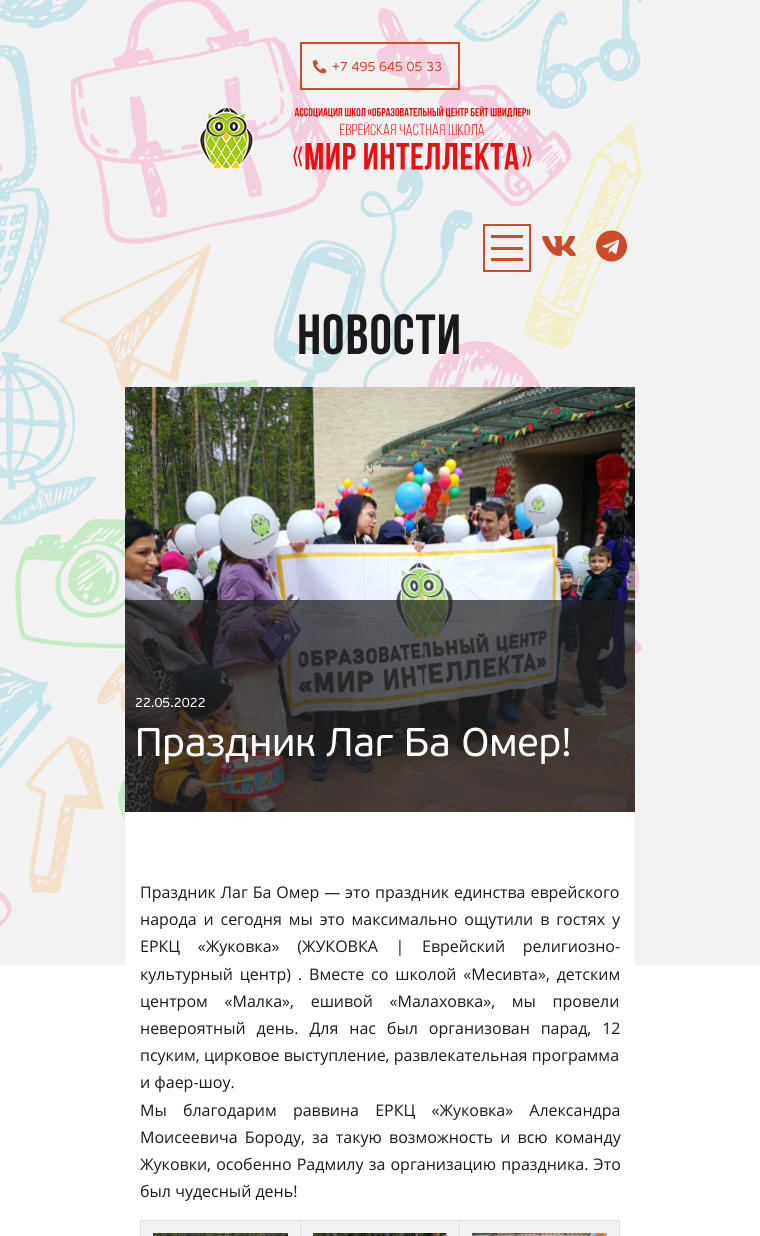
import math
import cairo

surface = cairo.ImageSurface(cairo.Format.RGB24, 760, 1236)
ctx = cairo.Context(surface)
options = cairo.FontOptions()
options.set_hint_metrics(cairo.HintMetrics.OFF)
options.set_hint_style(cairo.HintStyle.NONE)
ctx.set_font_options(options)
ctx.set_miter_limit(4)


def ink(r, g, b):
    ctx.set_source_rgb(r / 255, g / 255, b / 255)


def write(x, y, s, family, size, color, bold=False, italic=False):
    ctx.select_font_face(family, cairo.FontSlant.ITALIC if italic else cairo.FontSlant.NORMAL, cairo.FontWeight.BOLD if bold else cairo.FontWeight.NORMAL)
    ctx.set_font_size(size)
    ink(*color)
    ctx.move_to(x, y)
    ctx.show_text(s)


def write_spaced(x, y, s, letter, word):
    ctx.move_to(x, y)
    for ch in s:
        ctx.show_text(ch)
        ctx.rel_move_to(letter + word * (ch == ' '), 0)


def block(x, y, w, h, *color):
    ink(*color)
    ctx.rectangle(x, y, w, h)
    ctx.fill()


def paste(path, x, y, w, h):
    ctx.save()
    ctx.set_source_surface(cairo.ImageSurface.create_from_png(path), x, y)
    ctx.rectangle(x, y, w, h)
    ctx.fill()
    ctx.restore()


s1 = dict(family="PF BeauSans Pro", size=13.5, color=(205, 74, 43))
s2 = dict(family="PF BeauSans Pro", size=13.5, color=(255, 255, 255))
s3 = dict(family="PF BeauSans Pro", size=40, color=(255, 255, 255))
s4 = dict(family="Open Sans", size=16, color=(26, 26, 29))

ink(255, 255, 255)
ctx.paint()
block(0, 0, 760, 965, 242, 242, 242)
paste("pic1.png", 0, 0, 666, 926)
ctx.rectangle(301, 43, 158, 46)
ink(205, 74, 43)
ctx.stroke()
paste("pic2.png", 312, 60, 15, 14)
write(332, 71, "+7 495 645 05 33", **s1)
paste("pic3.png", 199, 106, 55, 64)
paste("pic4.png", 293, 106, 239, 64)
ctx.rectangle(484, 225, 46, 46)
ctx.stroke()
block(491, 235, 32, 3, 205, 74, 43)
block(491, 247, 32, 3, 205, 74, 43)
block(491, 258, 32, 3, 205, 74, 43)
paste("pic5.png", 542, 236, 34, 20)
paste("pic6.png", 596, 230, 31, 32)
ctx.select_font_face("Bebas Neue", cairo.FontSlant.NORMAL, cairo.FontWeight.BOLD)
ctx.set_font_size(56.5)
ink(26, 26, 29)
write_spaced(297, 354, "НОВОСТИ", 1, 0)
block(125, 812, 510, 153, 255, 255, 255)
paste("pic7.png", 125, 387, 510, 425)
ctx.set_source_rgba(0.125, 0.125, 0.125, 0.72)
ctx.rectangle(125, 600, 510, 212)
ctx.fill()
write(135, 707, "22.05.2022", **s2)
write(135, 756, "Праздник Лаг Ба Омер!", **s3)
ctx.select_font_face("Open Sans")
ctx.set_font_size(16)
ink(26, 26, 29)
write_spaced(140, 898, "Праздник Лаг Ба Омер — это праздник единства еврейского", 0, 0.75)
write_spaced(140, 925, "народа и сегодня мы это максимально ощутили в гостях у", 0, 2.75)
write_spaced(140, 952, "ЕРКЦ «Жуковка» (ЖУКОВКА | Еврейский религиозно-", 0, 13.5)
write_spaced(140, 980, "культурный центр) . Вместе со школой «Месивта», детским", 0, 2.75)
write_spaced(140, 1007, "центром «Малка», ешивой «Малаховка», мы провели", 0, 12.5)
write_spaced(140, 1034, "невероятный день. Для нас был организован парад, 12", 0, 6.75)
write(140, 1061, "псуким, цирковое выступление, развлекательная программа", **s4)
write(140, 1088, "и фаер-шоу.", **s4)
write_spaced(140, 1116, "Мы благодарим раввина ЕРКЦ «Жуковка» Александра", 0, 12)
write_spaced(140, 1143, "Моисеевича Бороду, за такую возможность и всю команду", 0, 3)
write_spaced(140, 1170, "Жуковки, особенно Радмилу за организацию праздника. Это", 0, 1)
write(140, 1197, "был чудесный день!", **s4)
block(141, 1221, 478, 15, 242, 242, 242)
block(459, 1220, 161, 1, 222, 226, 230)
block(459, 1220, 1, 16, 222, 226, 230)
block(300, 1220, 160, 1, 222, 226, 230)
block(300, 1220, 1, 16, 222, 226, 230)
block(140, 1220, 161, 1, 222, 226, 230)
block(140, 1220, 1, 16, 222, 226, 230)
paste("pic8.png", 153, 1233, 135, 3)
paste("pic9.png", 313, 1233, 134, 3)
block(619, 1220, 1, 16, 222, 226, 230)
paste("pic10.png", 472, 1233, 135, 3)
surface.write_to_png("screenshot.png")
